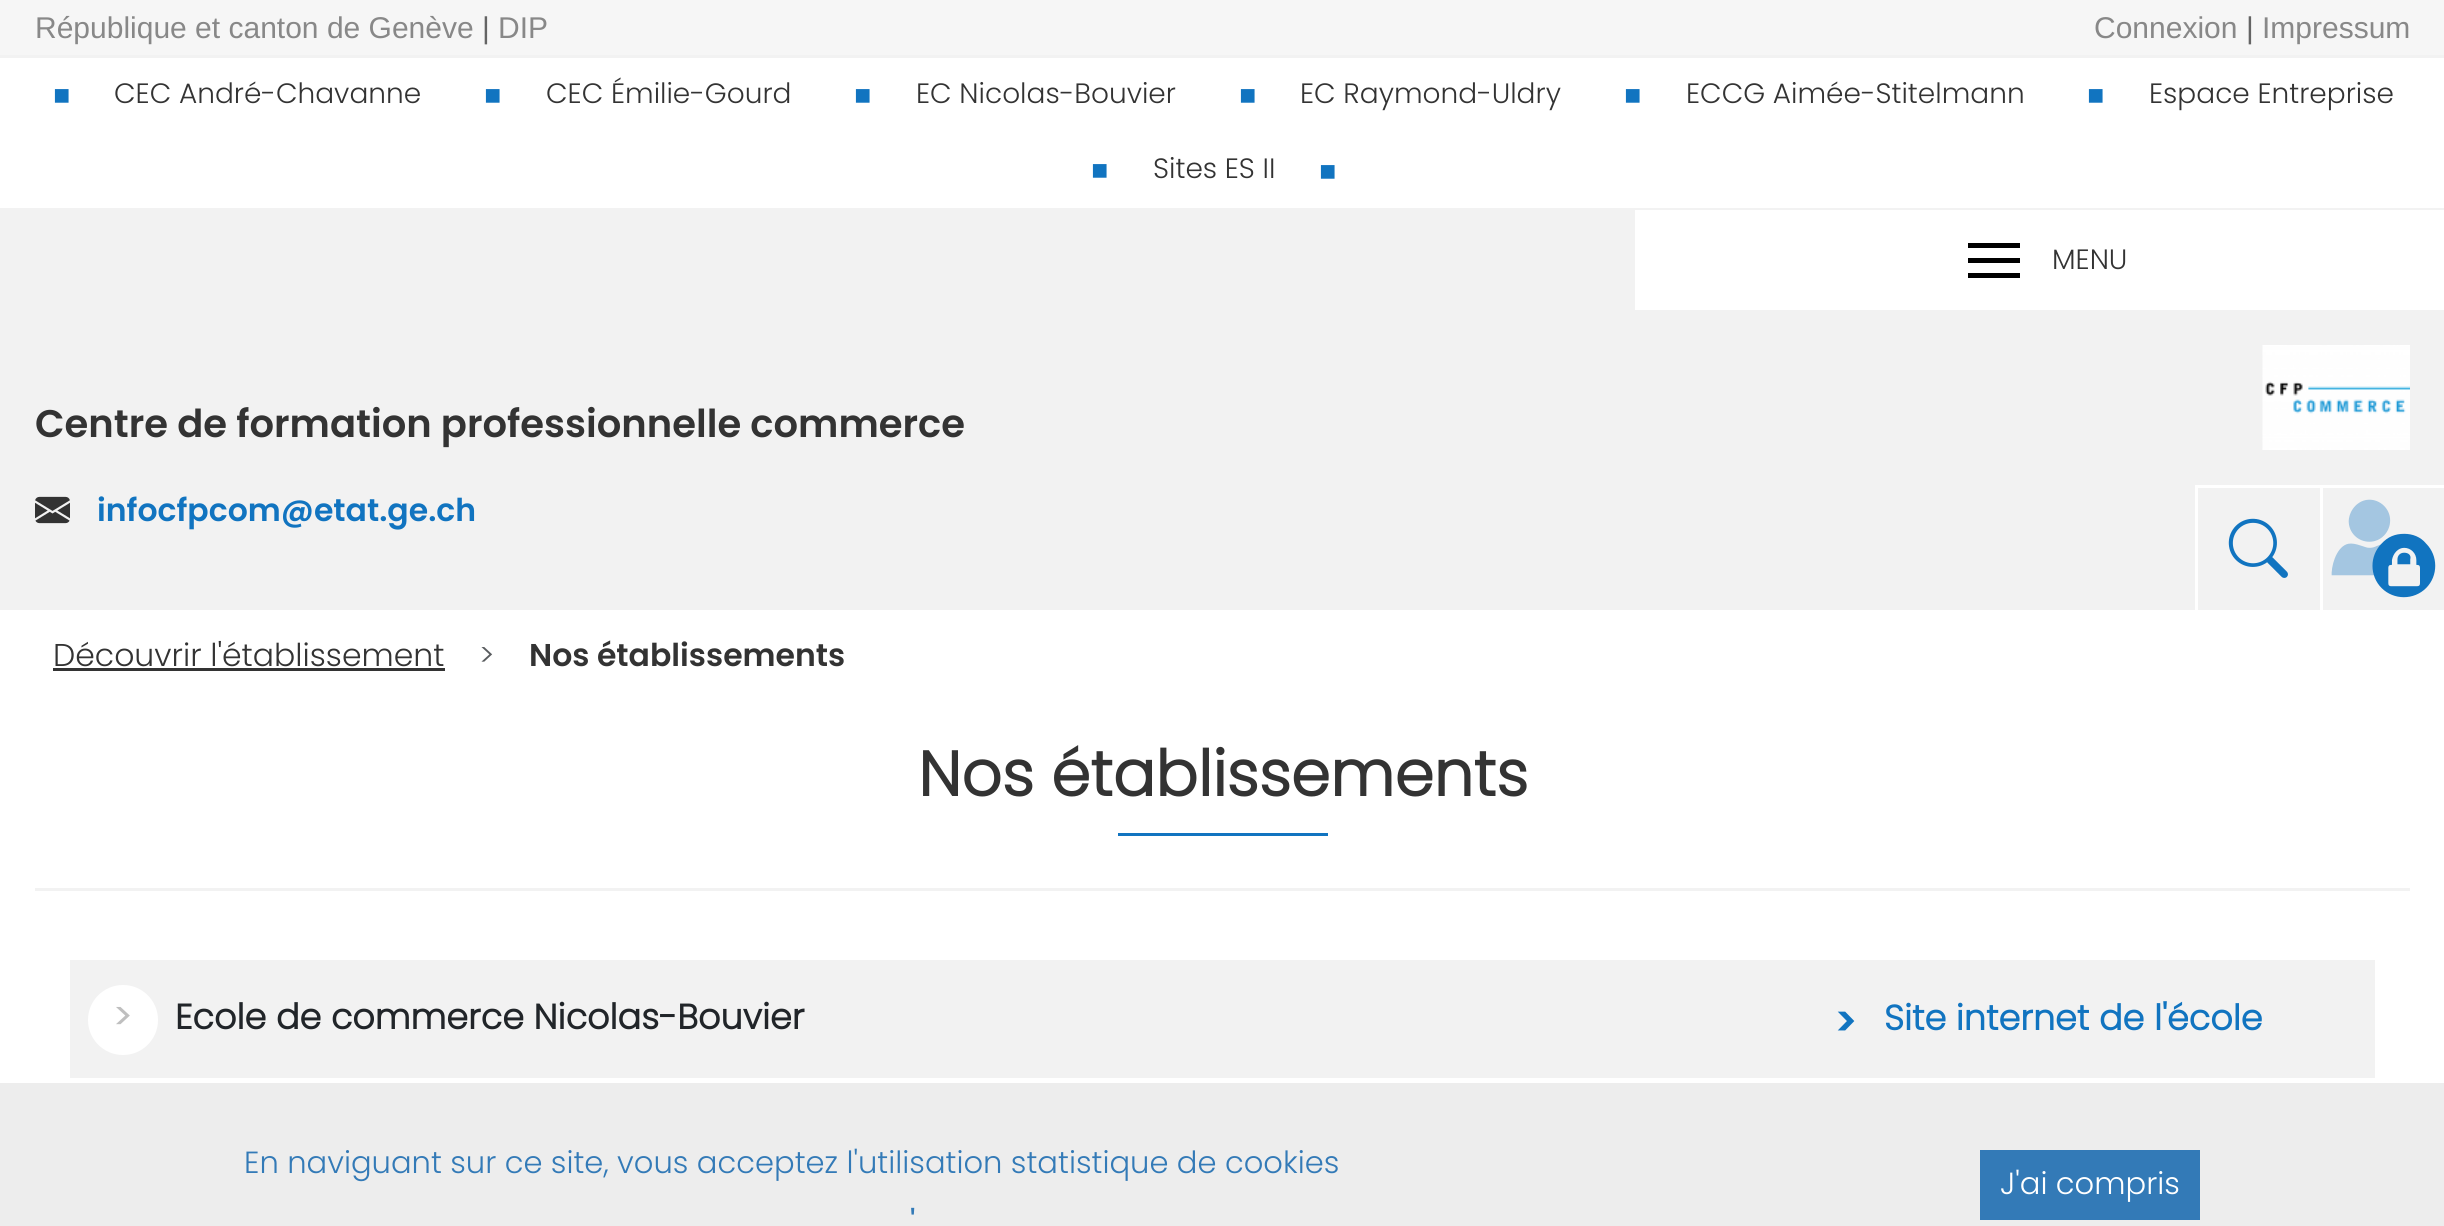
import math
import cairo

surface = cairo.ImageSurface(cairo.Format.RGB24, 2444, 1226)
ctx = cairo.Context(surface)
options = cairo.FontOptions()
options.set_hint_metrics(cairo.HintMetrics.OFF)
options.set_hint_style(cairo.HintStyle.NONE)
ctx.set_font_options(options)
ctx.set_miter_limit(4)


def ink(r, g, b):
    ctx.set_source_rgb(r / 255, g / 255, b / 255)


def write(x, y, s, family, size, color, bold=False, italic=False):
    ctx.select_font_face(family, cairo.FontSlant.ITALIC if italic else cairo.FontSlant.NORMAL, cairo.FontWeight.BOLD if bold else cairo.FontWeight.NORMAL)
    ctx.set_font_size(size)
    ink(*color)
    ctx.move_to(x, y)
    ctx.show_text(s)


def block(x, y, w, h, *color):
    ink(*color)
    ctx.rectangle(x, y, w, h)
    ctx.fill()


def paste(path, x, y, w, h):
    ctx.save()
    ctx.set_source_surface(cairo.ImageSurface.create_from_png(path), x, y)
    ctx.rectangle(x, y, w, h)
    ctx.fill()
    ctx.restore()


s1 = dict(family="Liberation Sans", size=30, color=(136, 136, 136))
s2 = dict(family="Liberation Sans", size=30, color=(100, 100, 100))
s3 = dict(family="Liberation Serif", size=55, color=(17, 116, 192))
s4 = dict(family="Poppins Light", size=28, color=(51, 51, 51))
s5 = dict(family="Poppins SemiBold", size=38.5, color=(51, 51, 51))
s6 = dict(family="Poppins SemiBold", size=31.5, color=(17, 116, 192))
s7 = dict(family="Poppins Light", size=31.5, color=(51, 51, 51))
s8 = dict(family="Poppins Light", size=31.5, color=(89, 92, 95))
s9 = dict(family="Poppins SemiBold", size=31.5, color=(51, 51, 51))
s10 = dict(family="Poppins", size=63, color=(51, 51, 51), bold=True)
s11 = dict(family="Poppins", size=35, color=(191, 191, 191), bold=True)
s12 = dict(family="Poppins", size=35, color=(33, 37, 41), bold=True)
s13 = dict(family="Poppins SemiBold", size=42, color=(17, 116, 192))
s14 = dict(family="Poppins", size=35, color=(17, 116, 192), bold=True)
s15 = dict(family="Poppins Light", size=30.6, color=(51, 122, 183))
s16 = dict(family="Poppins", size=30.6, color=(51, 122, 183), bold=True)
s17 = dict(family="Poppins Light", size=30.6, color=(255, 255, 255))

ink(255, 255, 255)
ctx.paint()
block(0, 0, 2444, 55, 246, 246, 246)
block(0, 55, 2444, 3, 242, 242, 242)
write(35, 38, "République et canton de Genève", **s1)
write(482, 38, "|", **s2)
write(498, 38, "DIP", **s1)
write(2094, 38, "Connexion", **s1)
write(2246, 38, "|", **s2)
write(2262, 38, "Impressum", **s1)
block(0, 208, 2444, 402, 242, 242, 242)
write(52, 113, "▪", **s3)
write(114, 103, "CEC André-Chavanne", **s4)
write(483, 113, "▪", **s3)
write(546, 103, "CEC Émilie-Gourd", **s4)
write(853, 113, "▪", **s3)
write(916, 103, "EC Nicolas-Bouvier", **s4)
write(1238, 113, "▪", **s3)
write(1300, 103, "EC Raymond-Uldry", **s4)
write(1623, 113, "▪", **s3)
write(1686, 103, "ECCG Aimée-Stitelmann", **s4)
write(2086, 113, "▪", **s3)
write(2149, 103, "Espace Entreprise", **s4)
write(1090, 188, "▪", **s3)
write(1153, 178, "Sites ES II", **s4)
write(1318, 189, "▪", **s3)
block(1635, 210, 809, 100, 255, 255, 255)
block(1968, 243, 52, 5, 0, 0, 0)
block(1968, 258, 52, 5, 0, 0, 0)
block(1968, 273, 52, 5, 0, 0, 0)
write(2052, 269, "MENU", **s4)
write(35, 437, "Centre de formation professionnelle commerce", **s5)
paste("pic1.png", 35, 496, 35, 28)
write(97, 521, "infocfpcom@etat.ge.ch", **s6)
paste("pic2.png", 2262, 345, 148, 105)
block(2195, 485, 249, 3, 255, 255, 255)
block(2195, 485, 3, 125, 255, 255, 255)
paste("pic3.png", 2228, 518, 60, 60)
block(2320, 485, 3, 125, 255, 255, 255)
paste("pic4.png", 2331, 499, 105, 99)
write(53, 666, "Découvrir l'établissement", **s7)
block(53, 668, 392, 3, 51, 51, 51)
write(479, 666, ">", **s8)
write(529, 666, "Nos établissements", **s9)
block(35, 888, 2375, 3, 242, 242, 242)
write(918, 796, "Nos établissements", **s10)
block(1118, 833, 210, 3, 17, 116, 192)
block(70, 960, 2305, 118, 242, 242, 242)
ink(255, 255, 255)
ctx.new_path()
ctx.arc(123, 1020, 35, 0, 2 * math.pi)
ctx.fill()
write(114, 1029, ">", **s11)
write(175, 1029, "Ecole de commerce Nicolas-Bouvier", **s12)
write(1834, 1036, ">", **s13)
write(1884, 1030, "Site internet de l'école", **s14)
block(0, 1083, 2444, 143, 237, 237, 237)
write(244, 1173, "En naviguant sur ce site, vous acceptez l'utilisation statistique de cookies", **s15)
write(910, 1233, "'", **s16)
block(1980, 1150, 220, 70, 51, 122, 183)
write(2000, 1194, "J'ai compris", **s17)
surface.write_to_png("screenshot.png")
